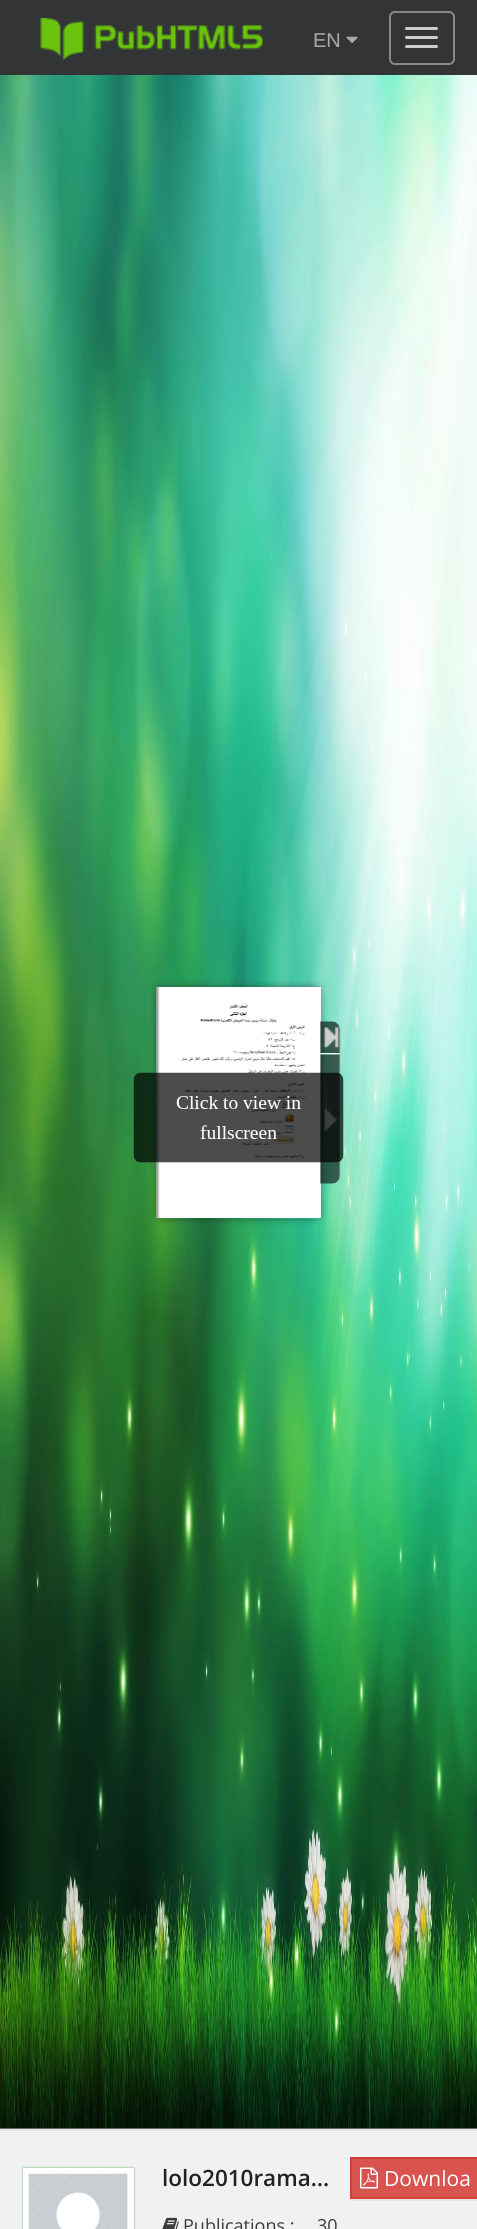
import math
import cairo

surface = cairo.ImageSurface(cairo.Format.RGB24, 477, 2229)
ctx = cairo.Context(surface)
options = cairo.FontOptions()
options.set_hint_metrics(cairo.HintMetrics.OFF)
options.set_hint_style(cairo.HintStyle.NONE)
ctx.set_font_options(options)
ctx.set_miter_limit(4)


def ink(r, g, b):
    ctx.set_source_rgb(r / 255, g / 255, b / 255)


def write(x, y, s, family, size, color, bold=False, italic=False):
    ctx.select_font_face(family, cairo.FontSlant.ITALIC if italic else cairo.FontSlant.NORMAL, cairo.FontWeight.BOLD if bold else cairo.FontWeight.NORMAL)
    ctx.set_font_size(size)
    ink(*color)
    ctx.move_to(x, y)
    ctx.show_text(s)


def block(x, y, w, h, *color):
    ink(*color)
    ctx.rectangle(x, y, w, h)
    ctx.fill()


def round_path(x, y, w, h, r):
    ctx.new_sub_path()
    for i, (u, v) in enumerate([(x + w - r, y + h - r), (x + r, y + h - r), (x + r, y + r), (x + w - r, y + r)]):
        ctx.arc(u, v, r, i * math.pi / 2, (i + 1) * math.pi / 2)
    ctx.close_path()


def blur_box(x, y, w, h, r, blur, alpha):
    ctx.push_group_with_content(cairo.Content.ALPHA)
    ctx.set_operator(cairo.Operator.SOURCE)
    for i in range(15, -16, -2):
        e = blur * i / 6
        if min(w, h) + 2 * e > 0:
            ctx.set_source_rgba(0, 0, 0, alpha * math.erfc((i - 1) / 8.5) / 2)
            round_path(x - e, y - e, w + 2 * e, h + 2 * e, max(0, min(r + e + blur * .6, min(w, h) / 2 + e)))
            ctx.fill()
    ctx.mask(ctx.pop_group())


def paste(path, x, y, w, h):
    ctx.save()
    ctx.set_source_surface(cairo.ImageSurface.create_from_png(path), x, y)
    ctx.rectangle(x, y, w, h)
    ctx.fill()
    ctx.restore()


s1 = dict(family="Liberation Sans", size=20, color=(170, 170, 170))
s2 = dict(family="Open Sans SemiBold", size=22.5, color=(34, 34, 34))
s3 = dict(family="Open Sans", size=21, color=(255, 255, 255))
s4 = dict(family="Open Sans", size=18, color=(60, 60, 60))

ink(124, 124, 124)
ctx.paint()
block(0, 0, 477, 75, 50, 52, 54)
paste("pic1.png", 40, 18, 223, 42)
write(313, 47, "EN", **s1)
paste("pic2.png", 346, 36, 12, 7)
round_path(390, 12, 64, 52, 5)
ink(136, 136, 136)
ctx.stroke()
ink(204, 204, 204)
round_path(405, 27, 33, 3, 1.5)
ctx.fill()
round_path(405, 36, 33, 3, 1.5)
ctx.fill()
round_path(405, 45, 33, 3, 1.5)
ctx.fill()
paste("pic3.png", 0, 75, 477, 2054)
block(0, 2131, 477, 98, 241, 241, 241)
block(0, 2129, 477, 2, 230, 230, 230)
ink(92, 184, 92)
blur_box(23, 2168, 111, 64, 0, 1, 1)
block(127, 2174, 1, 55, 245, 245, 245)
ctx.rectangle(26, 2171, 105, 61)
ink(255, 255, 255)
ctx.set_line_width(6)
ctx.stroke()
paste("pic4.png", 28, 2173, 100, 56)
write(162, 2186, "lolo2010rama…", **s2)
block(350, 2199, 127, 2, 229, 229, 229)
ink(217, 83, 79)
ctx.rectangle(351, 2158, 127, 40)
ctx.fill_preserve()
ink(212, 63, 58)
ctx.set_line_width(2)
ctx.stroke()
paste("pic5.png", 360, 2167, 18, 22)
write(384, 2186, "Downloa", **s3)
paste("pic6.png", 162, 2217, 17, 12)
write(183, 2232, "Publications :", **s4)
write(317, 2232, "30", **s4)
surface.write_to_png("screenshot.png")
